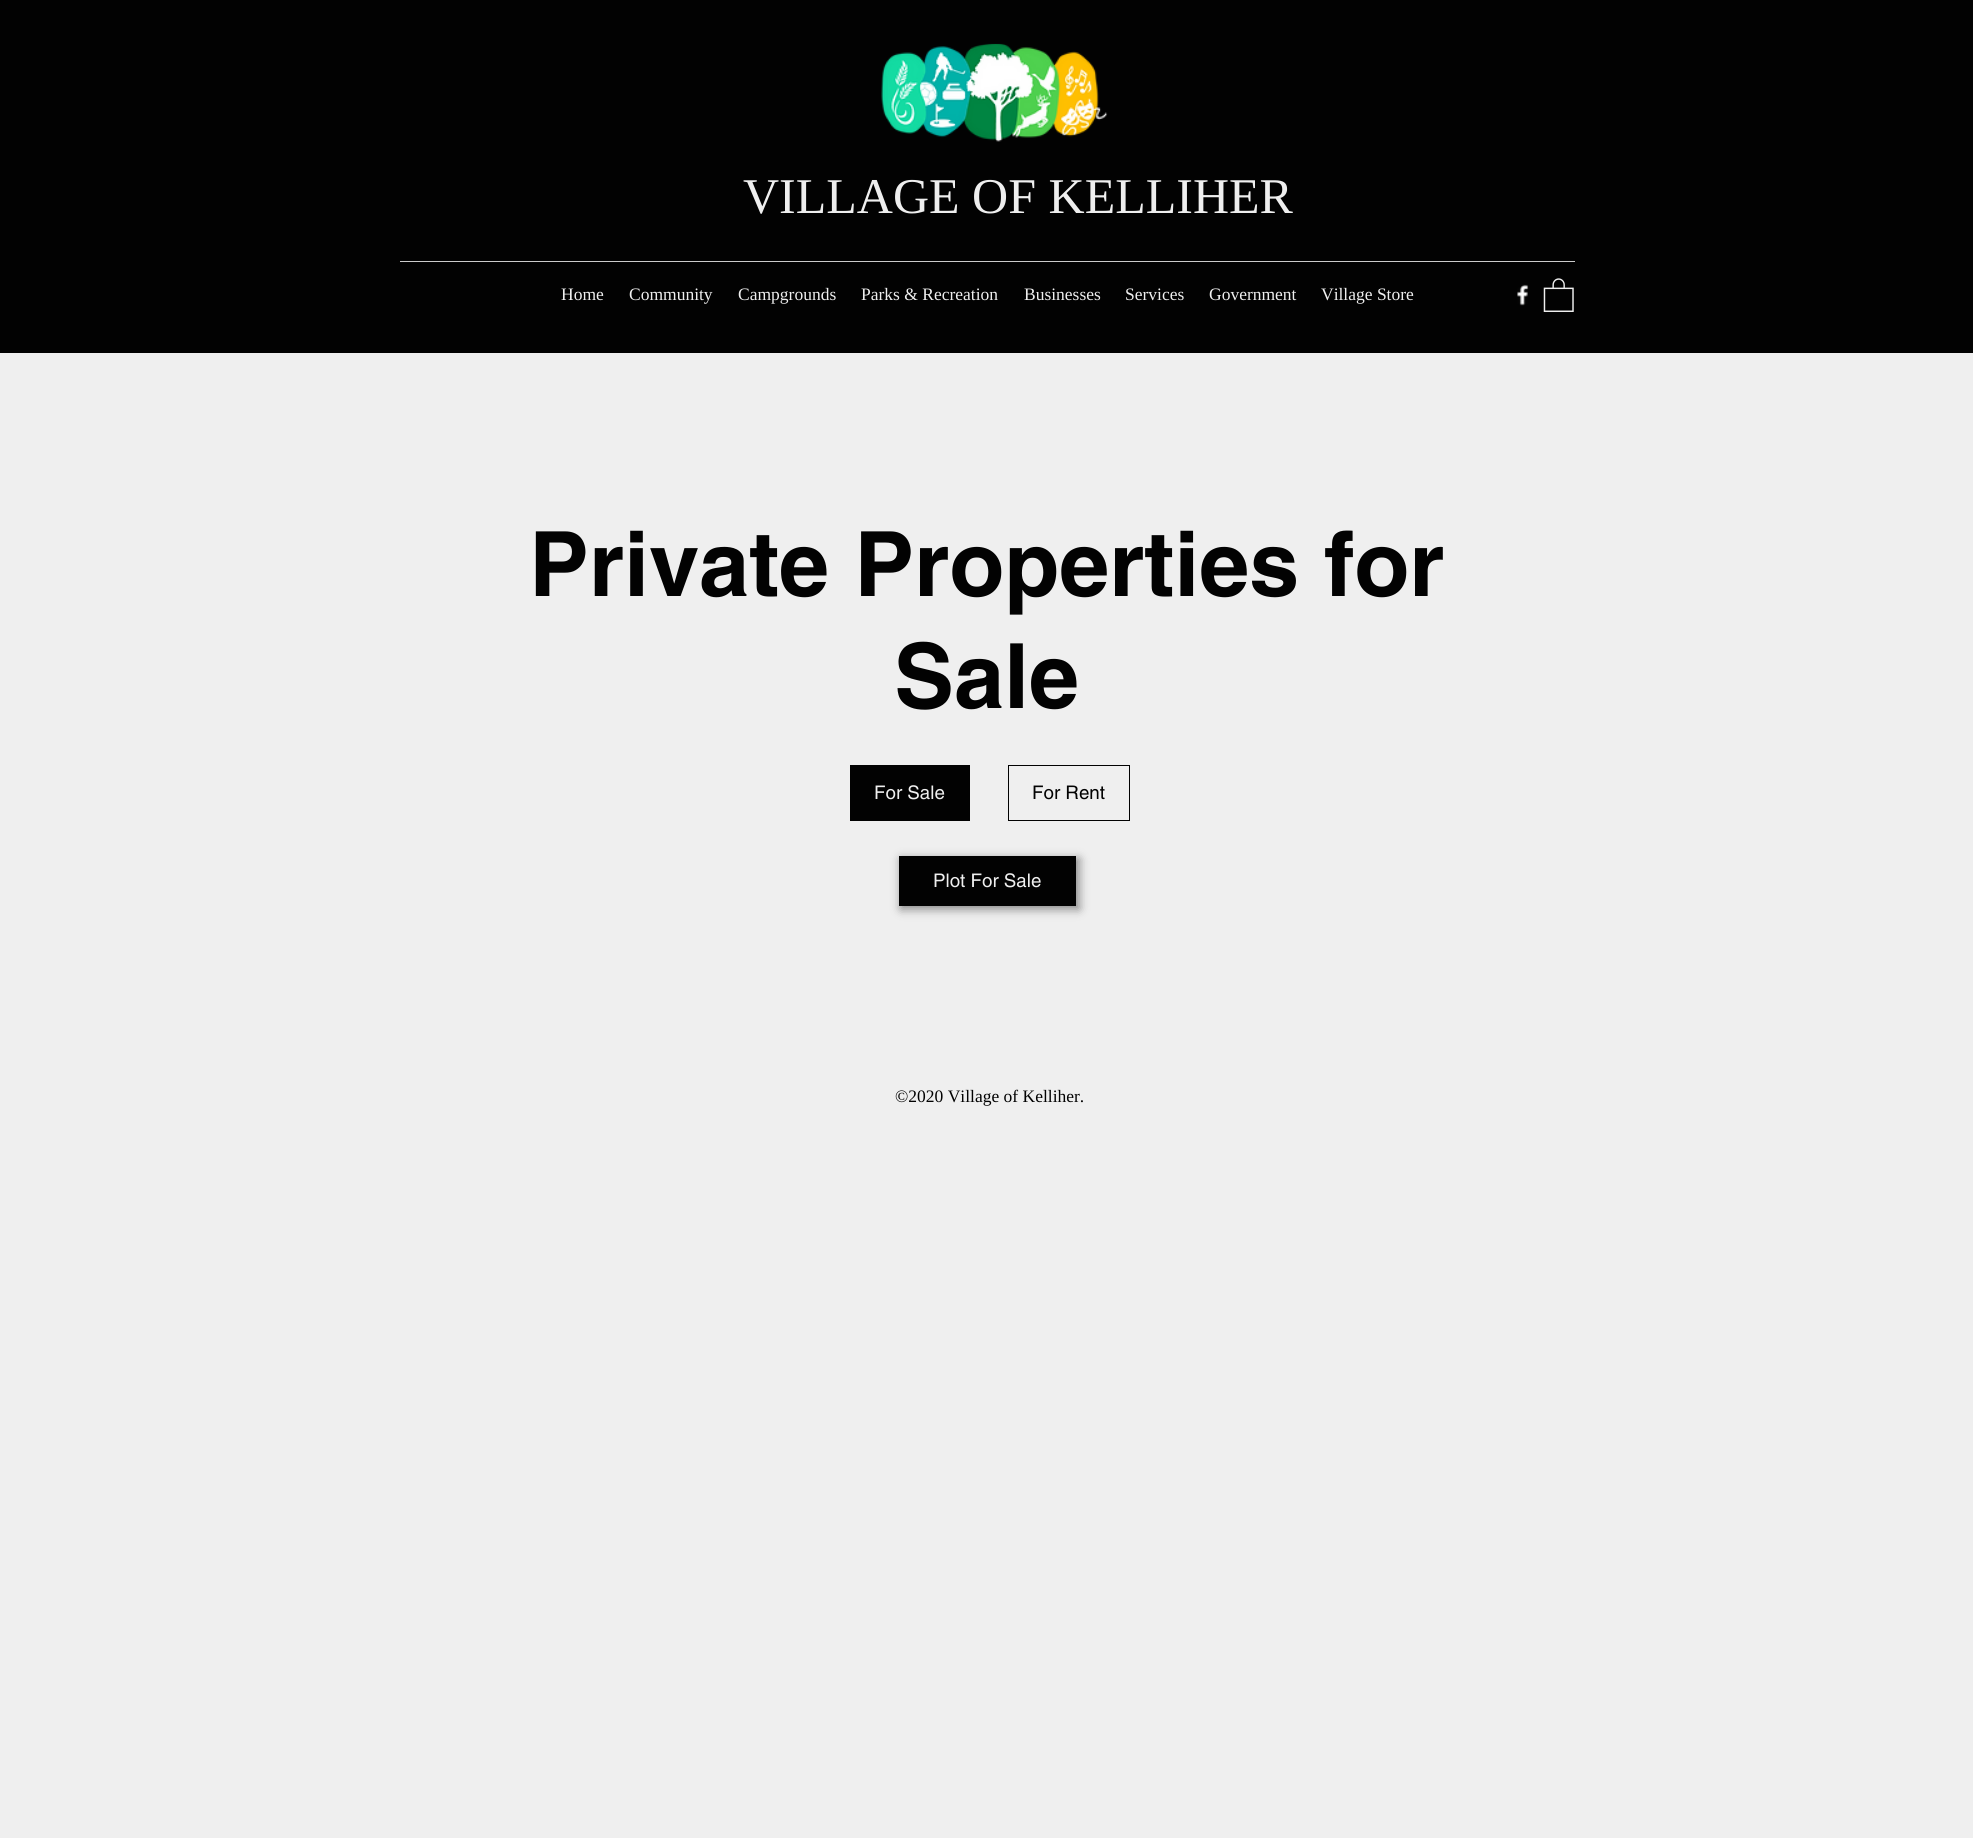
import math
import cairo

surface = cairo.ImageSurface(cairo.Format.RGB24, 1973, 1838)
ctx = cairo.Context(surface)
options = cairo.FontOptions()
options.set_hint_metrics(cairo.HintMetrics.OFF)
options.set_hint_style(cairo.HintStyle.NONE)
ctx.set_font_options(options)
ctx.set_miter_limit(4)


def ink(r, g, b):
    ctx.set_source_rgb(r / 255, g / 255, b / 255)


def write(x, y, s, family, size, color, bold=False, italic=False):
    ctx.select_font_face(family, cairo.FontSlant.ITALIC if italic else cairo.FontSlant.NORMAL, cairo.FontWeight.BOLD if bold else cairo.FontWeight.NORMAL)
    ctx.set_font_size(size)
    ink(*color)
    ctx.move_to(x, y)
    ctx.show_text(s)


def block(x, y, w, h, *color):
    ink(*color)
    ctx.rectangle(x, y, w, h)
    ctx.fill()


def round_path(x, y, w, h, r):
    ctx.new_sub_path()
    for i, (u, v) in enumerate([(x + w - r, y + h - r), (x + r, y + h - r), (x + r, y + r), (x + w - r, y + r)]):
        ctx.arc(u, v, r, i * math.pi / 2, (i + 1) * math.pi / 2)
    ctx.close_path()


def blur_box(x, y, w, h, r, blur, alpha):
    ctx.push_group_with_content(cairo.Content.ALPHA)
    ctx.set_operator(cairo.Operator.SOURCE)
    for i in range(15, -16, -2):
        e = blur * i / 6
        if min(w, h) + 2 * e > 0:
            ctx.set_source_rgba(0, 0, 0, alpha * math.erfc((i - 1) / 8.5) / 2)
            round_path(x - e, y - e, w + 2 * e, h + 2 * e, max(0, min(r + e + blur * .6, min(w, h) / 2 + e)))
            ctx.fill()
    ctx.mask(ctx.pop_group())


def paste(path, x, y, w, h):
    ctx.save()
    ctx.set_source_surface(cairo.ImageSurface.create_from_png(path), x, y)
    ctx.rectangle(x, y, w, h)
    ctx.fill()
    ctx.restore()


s1 = dict(family="Liberation Serif", size=50, color=(239, 239, 239))
s2 = dict(family="Liberation Serif", size=17.5, color=(239, 239, 239))
s3 = dict(family="helvetica", size=90, color=(2, 2, 2), bold=True)
s4 = dict(family="helvetica", size=18.75, color=(239, 239, 239))
s5 = dict(family="helvetica", size=18.75, color=(2, 2, 2))
s6 = dict(family="Liberation Serif", size=17.5, color=(2, 2, 2))

ink(239, 239, 239)
ctx.paint()
block(0, 0, 1973, 353, 2, 2, 2)
paste("pic1.png", 881, 43, 227, 99)
write(743, 213, "VILLAGE OF KELLIHER", **s1)
block(400, 261, 1175, 1, 203, 203, 203)
write(561, 300, "Home", **s2)
write(629, 300, "Community", **s2)
write(738, 300, "Campgrounds", **s2)
write(861, 300, "Parks & Recreation", **s2)
write(1024, 300, "Businesses", **s2)
write(1125, 300, "Services", **s2)
write(1209, 300, "Government", **s2)
write(1321, 300, "Village Store", **s2)
paste("pic2.png", 1517, 284, 12, 22)
paste("pic3.png", 1543, 278, 31, 34)
write(529, 596, "Private Properties for", **s3)
write(894, 708, "Sale", **s3)
block(850, 765, 120, 56, 2, 2, 2)
write(874, 799, "For Sale", **s4)
ctx.rectangle(1008.5, 765.5, 121, 55)
ink(2, 2, 2)
ctx.set_line_width(1)
ctx.stroke()
write(1032, 799, "For Rent", **s5)
ink(0, 0, 0)
blur_box(901, 859, 178, 50, 0, 5, 0.45)
block(899, 856, 177, 50, 2, 2, 2)
write(933, 887, "Plot For Sale", **s4)
write(895, 1102, "©2020 Village of Kelliher.", **s6)
surface.write_to_png("screenshot.png")
